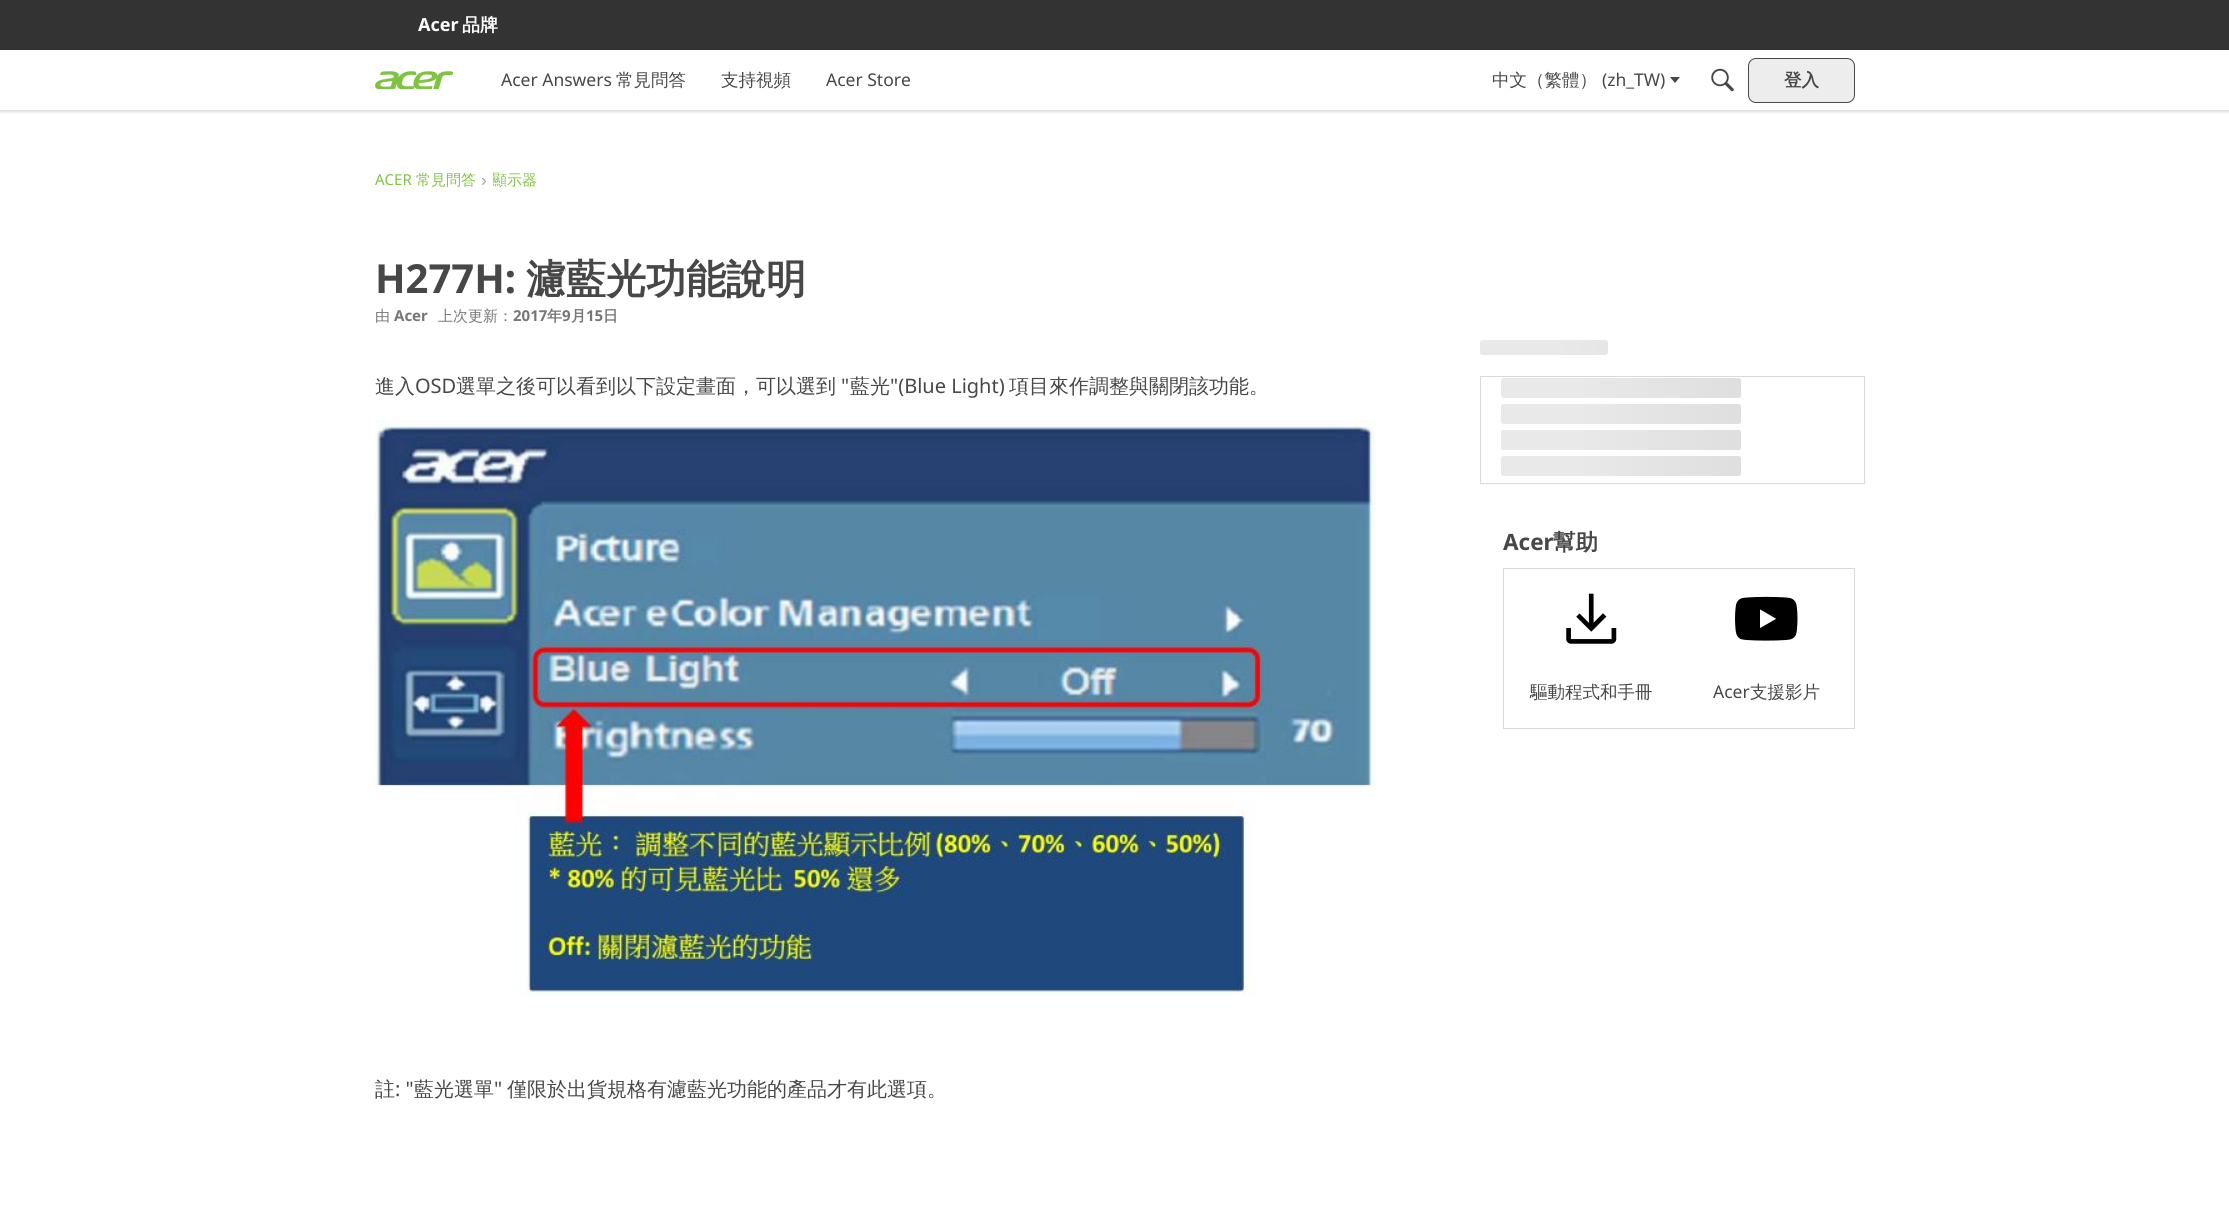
import math
import cairo

surface = cairo.ImageSurface(cairo.Format.RGB24, 2229, 1219)
ctx = cairo.Context(surface)
options = cairo.FontOptions()
options.set_hint_metrics(cairo.HintMetrics.OFF)
options.set_hint_style(cairo.HintStyle.NONE)
ctx.set_font_options(options)
ctx.set_miter_limit(4)


def ink(r, g, b):
    ctx.set_source_rgb(r / 255, g / 255, b / 255)


def write(x, y, s, family, size, color, bold=False, italic=False):
    ctx.select_font_face(family, cairo.FontSlant.ITALIC if italic else cairo.FontSlant.NORMAL, cairo.FontWeight.BOLD if bold else cairo.FontWeight.NORMAL)
    ctx.set_font_size(size)
    ink(*color)
    ctx.move_to(x, y)
    ctx.show_text(s)


def block(x, y, w, h, *color):
    ink(*color)
    ctx.rectangle(x, y, w, h)
    ctx.fill()


def round_path(x, y, w, h, r):
    ctx.new_sub_path()
    for i, (u, v) in enumerate([(x + w - r, y + h - r), (x + r, y + h - r), (x + r, y + r), (x + w - r, y + r)]):
        ctx.arc(u, v, r, i * math.pi / 2, (i + 1) * math.pi / 2)
    ctx.close_path()


def blur_box(x, y, w, h, r, blur, alpha):
    ctx.push_group_with_content(cairo.Content.ALPHA)
    ctx.set_operator(cairo.Operator.SOURCE)
    for i in range(15, -16, -2):
        e = blur * i / 6
        if min(w, h) + 2 * e > 0:
            ctx.set_source_rgba(0, 0, 0, alpha * math.erfc((i - 1) / 8.5) / 2)
            round_path(x - e, y - e, w + 2 * e, h + 2 * e, max(0, min(r + e + blur * .6, min(w, h) / 2 + e)))
            ctx.fill()
    ctx.mask(ctx.pop_group())


def paste(path, x, y, w, h):
    ctx.save()
    ctx.set_source_surface(cairo.ImageSurface.create_from_png(path), x, y)
    ctx.rectangle(x, y, w, h)
    ctx.fill()
    ctx.restore()


s1 = dict(family="Noto Sans", size=18, color=(255, 255, 255), bold=True)
s2 = dict(family="WenQuanYi Zen Hei", size=18, color=(255, 255, 255), bold=True)
s3 = dict(family="Noto Sans", size=17.5, color=(71, 71, 71))
s4 = dict(family="WenQuanYi Zen Hei Medium", size=17.5, color=(71, 71, 71))
s5 = dict(family="WenQuanYi Zen Hei", size=17.5, color=(71, 71, 71), bold=True)
s6 = dict(family="Noto Sans", size=15, color=(128, 195, 67))
s7 = dict(family="WenQuanYi Zen Hei Medium", size=15, color=(128, 195, 67))
s8 = dict(family="Liberation Sans", size=17.5, color=(163, 163, 163))
s9 = dict(family="Noto Sans", size=40, color=(71, 71, 71), bold=True)
s10 = dict(family="WenQuanYi Zen Hei", size=40, color=(71, 71, 71), bold=True)
s11 = dict(family="WenQuanYi Zen Hei Medium", size=15, color=(118, 118, 118))
s12 = dict(family="Noto Sans", size=15, color=(118, 118, 118), bold=True)
s13 = dict(family="WenQuanYi Zen Hei", size=15, color=(118, 118, 118), bold=True)
s14 = dict(family="WenQuanYi Zen Hei Medium", size=20, color=(71, 71, 71))
s15 = dict(family="Noto Sans", size=20, color=(71, 71, 71))
s16 = dict(family="Noto Sans", size=22.5, color=(71, 71, 71), bold=True)
s17 = dict(family="WenQuanYi Zen Hei", size=22.5, color=(71, 71, 71), bold=True)

ink(255, 255, 255)
ctx.paint()
block(0, 0, 2229, 50, 51, 51, 51)
write(418, 31, "Acer", **s1)
write(462, 31, "品牌", **s2)
ctx.save()
ctx.set_fill_rule(cairo.FillRule.EVEN_ODD)
ctx.new_path()
ctx.move_to(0, 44)
ctx.line_to(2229, 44)
ctx.line_to(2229, 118)
ctx.line_to(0, 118)
ctx.close_path()
ctx.move_to(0, 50)
ctx.line_to(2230, 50)
ctx.line_to(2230, 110)
ctx.line_to(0, 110)
ctx.close_path()
ctx.clip()
ink(0, 0, 0)
blur_box(0, 51, 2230, 60, 0, 2, 0.22)
ctx.restore()
paste("pic1.png", 375, 71, 78, 18)
write(501, 86, "Acer Answers", **s3)
write(616, 86, "常見問答", **s4)
write(721, 86, "支持視頻", **s4)
write(826, 86, "Acer Store", **s3)
write(1492, 86, "中文（繁體）", **s4)
write(1602, 86, "(zh_TW)", **s3)
ctx.new_path()
ctx.move_to(1670, 77)
ctx.line_to(1680, 77)
ctx.line_to(1675, 83)
ctx.close_path()
ctx.fill()
paste("pic2.png", 1711, 68, 23, 24)
ink(237, 237, 237)
round_path(1748.5, 58.5, 106, 44, 7.5)
ctx.fill_preserve()
ink(71, 71, 71)
ctx.set_line_width(1)
ctx.stroke()
write(1784, 86, "登入", **s5)
write(375, 185, "ACER", **s6)
write(416, 185, "常見問答", **s7)
write(481, 186, "›", **s8)
ctx.save()
ctx.rectangle(493, 170, 45, 20)
ctx.clip()
write(492, 185, "顯示器", **s7)
ctx.restore()
write(375, 293, "H277H:", **s9)
write(526, 293, "濾藍光功能說明", **s10)
write(375, 321, "由", **s11)
write(394, 321, "Acer", **s12)
write(438, 321, "上次更新：", **s11)
write(513, 321, "2017", **s12)
write(547, 321, "年", **s13)
write(562, 321, "9", **s12)
write(571, 321, "月", **s13)
write(586, 321, "15", **s12)
write(603, 321, "日", **s13)
write(375, 393, "進入", **s14)
write(415, 393, "OSD", **s15)
write(456, 393, "選單之後可以看到以下設定畫面，可以選到", **s14)
write(841, 393, "\"", **s15)
write(850, 393, "藍光", **s14)
write(890, 393, "\"(Blue Light)", **s15)
write(1009, 393, "項目來作調整與關閉該功能。", **s14)
paste("pic3.png", 375, 420, 1001, 576)
write(375, 1096, "註", **s14)
write(395, 1096, ": \"", **s15)
write(414, 1096, "藍光選單", **s14)
write(494, 1096, "\"", **s15)
write(507, 1096, "僅限於出貨規格有濾藍光功能的產品才有此選項。", **s14)
gradient = cairo.LinearGradient(1480, 348, 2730, 347)
gradient.add_color_stop_rgba(0.06, 0.914, 0.914, 0.914, 1)
gradient.add_color_stop_rgba(0.25, 0.855, 0.855, 0.855, 1)
gradient.add_color_stop_rgba(0.34, 0.914, 0.914, 0.914, 1)
ctx.set_source(gradient)
round_path(1480, 340, 128, 15, 2.5)
ctx.fill()
ctx.rectangle(1480.5, 376.5, 384, 107)
ink(218, 218, 218)
ctx.stroke()
gradient = cairo.LinearGradient(1501, 388, 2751, 387)
gradient.add_color_stop_rgba(0.06, 0.914, 0.914, 0.914, 1)
gradient.add_color_stop_rgba(0.25, 0.855, 0.855, 0.855, 1)
gradient.add_color_stop_rgba(0.34, 0.914, 0.914, 0.914, 1)
ctx.set_source(gradient)
round_path(1501, 378, 240, 20, 2.5)
ctx.fill()
gradient = cairo.LinearGradient(1501, 414, 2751, 414)
gradient.add_color_stop_rgba(0.06, 0.914, 0.914, 0.914, 1)
gradient.add_color_stop_rgba(0.25, 0.855, 0.855, 0.855, 1)
gradient.add_color_stop_rgba(0.34, 0.914, 0.914, 0.914, 1)
ctx.set_source(gradient)
round_path(1501, 404, 240, 20, 2.5)
ctx.fill()
gradient = cairo.LinearGradient(1501, 440, 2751, 440)
gradient.add_color_stop_rgba(0.06, 0.914, 0.914, 0.914, 1)
gradient.add_color_stop_rgba(0.25, 0.855, 0.855, 0.855, 1)
gradient.add_color_stop_rgba(0.34, 0.914, 0.914, 0.914, 1)
ctx.set_source(gradient)
round_path(1501, 430, 240, 20, 2.5)
ctx.fill()
gradient = cairo.LinearGradient(1501, 466, 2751, 466)
gradient.add_color_stop_rgba(0.06, 0.914, 0.914, 0.914, 1)
gradient.add_color_stop_rgba(0.25, 0.855, 0.855, 0.855, 1)
gradient.add_color_stop_rgba(0.34, 0.914, 0.914, 0.914, 1)
ctx.set_source(gradient)
round_path(1501, 456, 240, 20, 2.5)
ctx.fill()
write(1503, 550, "Acer", **s16)
write(1553, 550, "幫助", **s17)
ctx.rectangle(1503.5, 568.5, 351, 160)
ink(218, 218, 218)
ctx.stroke()
paste("pic4.png", 1566, 593, 51, 51)
write(1530, 698, "驅動程式和手冊", **s4)
paste("pic5.png", 1735, 596, 63, 45)
write(1713, 698, "Acer", **s3)
write(1750, 698, "支援影片", **s4)
surface.write_to_png("screenshot.png")
